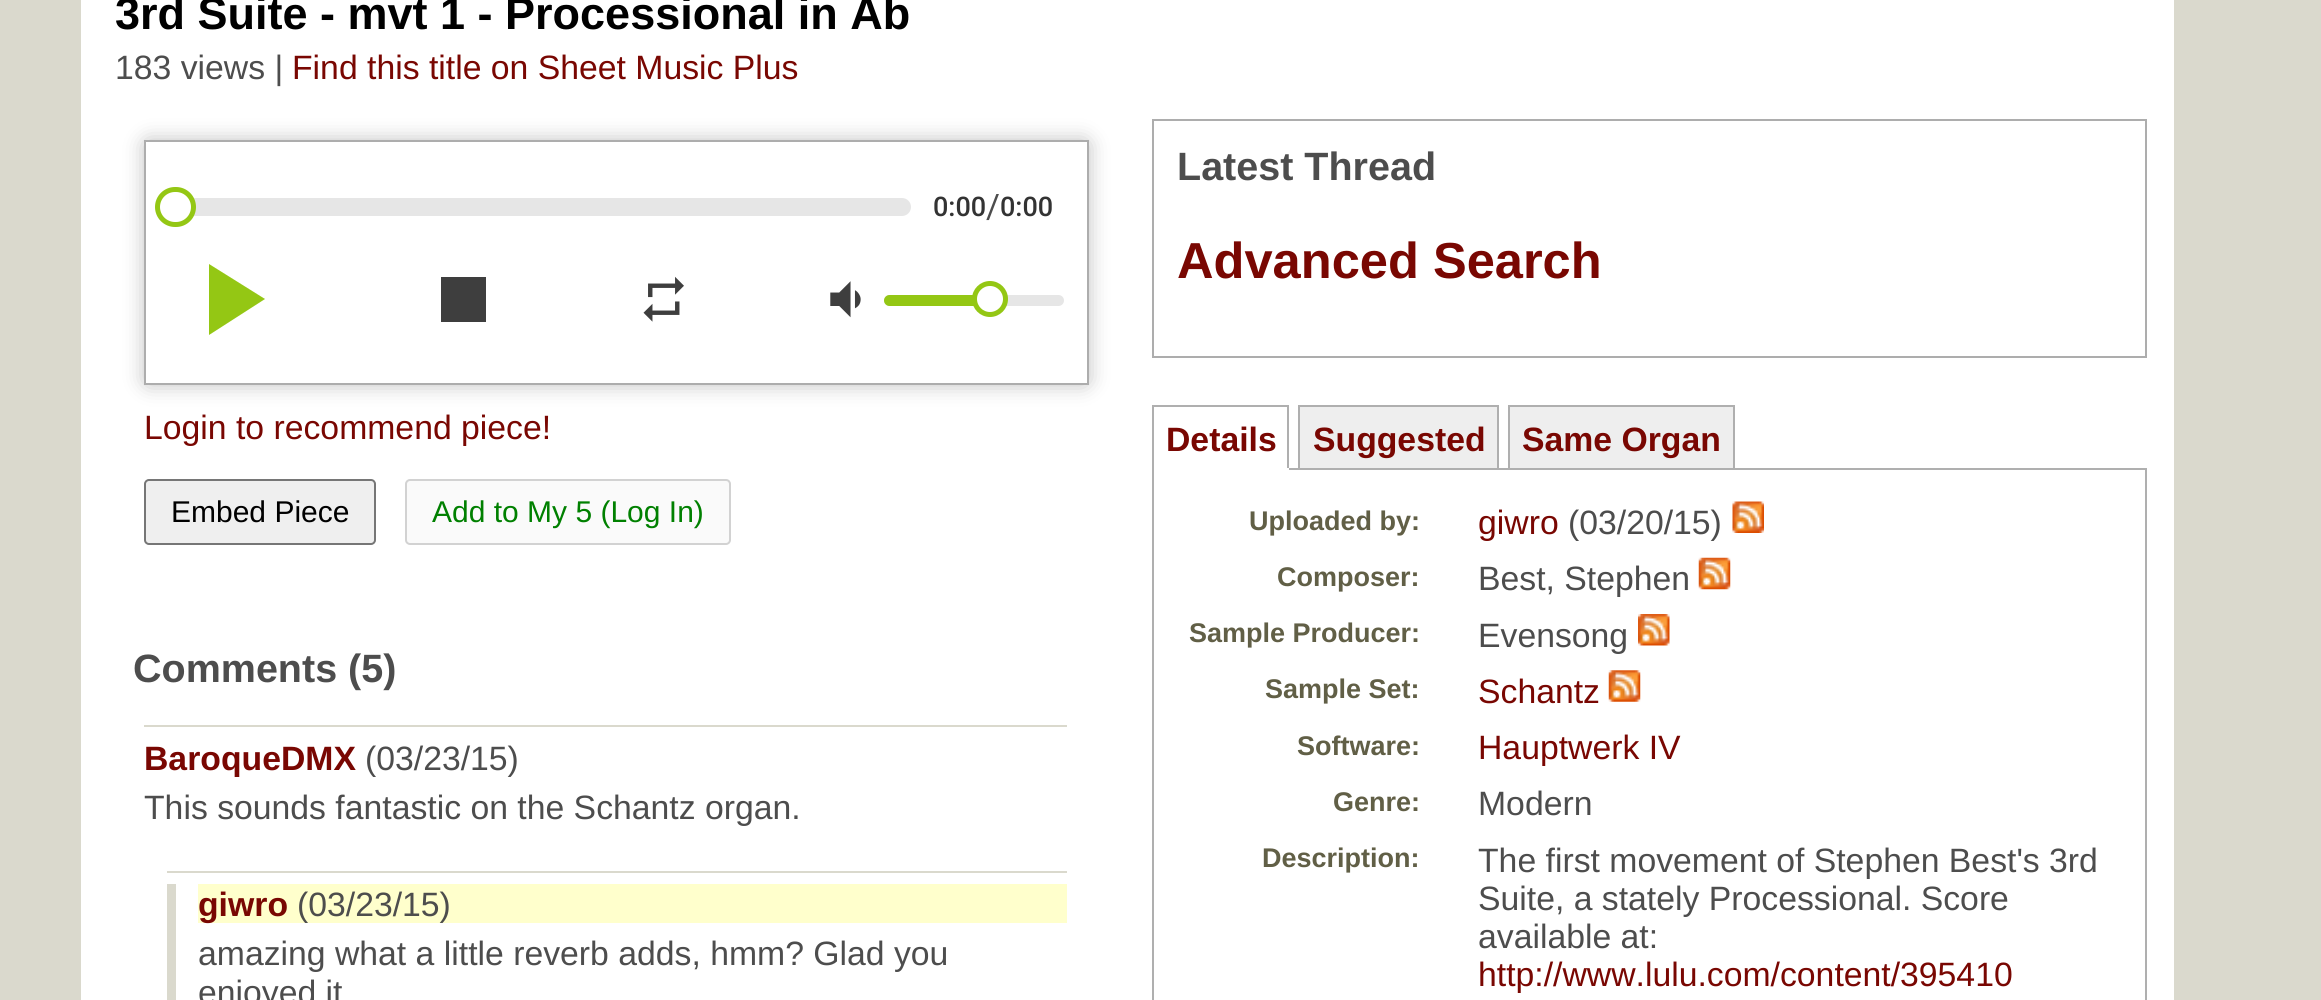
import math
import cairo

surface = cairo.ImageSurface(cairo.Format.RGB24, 2321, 1000)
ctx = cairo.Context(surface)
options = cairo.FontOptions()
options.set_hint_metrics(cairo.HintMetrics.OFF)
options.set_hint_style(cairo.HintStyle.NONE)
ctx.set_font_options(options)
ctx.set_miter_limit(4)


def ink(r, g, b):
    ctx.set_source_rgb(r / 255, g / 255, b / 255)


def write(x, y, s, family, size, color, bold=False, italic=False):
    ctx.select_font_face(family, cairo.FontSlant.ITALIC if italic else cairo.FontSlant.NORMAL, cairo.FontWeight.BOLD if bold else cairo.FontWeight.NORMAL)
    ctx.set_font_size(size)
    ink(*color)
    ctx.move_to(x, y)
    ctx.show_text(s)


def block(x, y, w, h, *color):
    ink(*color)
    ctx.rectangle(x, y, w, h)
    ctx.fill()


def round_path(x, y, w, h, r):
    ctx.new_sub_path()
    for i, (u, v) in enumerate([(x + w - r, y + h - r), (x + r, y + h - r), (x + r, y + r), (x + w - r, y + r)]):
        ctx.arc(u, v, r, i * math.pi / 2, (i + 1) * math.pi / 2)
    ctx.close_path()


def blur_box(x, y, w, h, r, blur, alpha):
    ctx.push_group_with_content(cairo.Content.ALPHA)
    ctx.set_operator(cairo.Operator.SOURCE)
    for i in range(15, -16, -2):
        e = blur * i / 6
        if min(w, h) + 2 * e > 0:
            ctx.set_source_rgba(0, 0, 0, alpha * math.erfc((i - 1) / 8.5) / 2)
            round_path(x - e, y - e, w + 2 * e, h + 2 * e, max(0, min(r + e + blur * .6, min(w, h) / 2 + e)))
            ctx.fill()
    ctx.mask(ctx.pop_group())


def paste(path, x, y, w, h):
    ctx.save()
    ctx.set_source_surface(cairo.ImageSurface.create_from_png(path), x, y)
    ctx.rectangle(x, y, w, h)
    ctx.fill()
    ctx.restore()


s1 = dict(family="Liberation Sans", size=45, color=(0, 0, 0), bold=True)
s2 = dict(family="Liberation Sans", size=33.75, color=(77, 77, 77))
s3 = dict(family="Liberation Sans", size=33.75, color=(121, 7, 2))
s4 = dict(family="Roboto Medium", size=27, color=(51, 51, 51))
s5 = dict(family="Roboto", size=33.75, color=(77, 77, 77))
s6 = dict(family="Liberation Sans", size=30, color=(0, 0, 0))
s7 = dict(family="Liberation Sans", size=30, color=(0, 128, 0))
s8 = dict(family="Liberation Sans", size=39.5, color=(77, 77, 77), bold=True)
s9 = dict(family="Liberation Sans", size=33.75, color=(121, 7, 2), bold=True)
s10 = dict(family="Liberation Sans", size=50.6, color=(121, 7, 2), bold=True)
s11 = dict(family="Liberation Sans", size=27, color=(97, 95, 70), bold=True)

ink(218, 217, 205)
ctx.paint()
block(81, 0, 2093, 1000, 255, 255, 255)
write(115, 29, "3rd Suite - mvt 1 - Processional in Ab", **s1)
write(115, 79, "183 views |", **s2)
write(292, 79, "Find this title on Sheet Music Plus", **s3)
ink(193, 193, 193)
blur_box(144, 140, 945, 245, 5, 10, 1)
ink(255, 255, 255)
ctx.rectangle(145, 141, 943, 243)
ctx.fill_preserve()
ink(173, 173, 173)
ctx.stroke()
ink(230, 230, 230)
round_path(180, 198, 731, 18, 9)
ctx.fill()
ink(255, 255, 255)
round_path(157.5, 189.5, 36, 35, 17.5)
ctx.fill_preserve()
ink(148, 199, 20)
ctx.set_line_width(5)
ctx.stroke()
write(933, 216, "0:00", **s4)
write(986, 218, "/", **s5)
write(1000, 216, "0:00", **s4)
ink(148, 199, 20)
ctx.new_path()
ctx.move_to(209, 264)
ctx.line_to(265, 299)
ctx.line_to(209, 335)
ctx.close_path()
ctx.fill()
block(441, 277, 45, 45, 62, 62, 62)
paste("pic1.png", 643, 276, 41, 46)
paste("pic2.png", 830, 281, 31, 37)
ink(230, 230, 230)
round_path(884, 295, 180, 11, 5.5)
ctx.fill()
ink(148, 199, 20)
ctx.new_path()
ctx.move_to(889.5, 295)
ctx.line_to(992, 295)
ctx.line_to(992, 306)
ctx.line_to(889.5, 306)
ctx.curve_to(886.5, 306, 884, 303.5, 884, 300.5)
ctx.curve_to(884, 297.5, 886.5, 295, 889.5, 295)
ctx.close_path()
ctx.fill()
ink(255, 255, 255)
ctx.arc(990, 299, 15.5, 0, 2 * math.pi)
ctx.fill_preserve()
ink(148, 199, 20)
ctx.stroke()
write(144, 439, "Login to recommend piece!", **s3)
ink(239, 239, 239)
round_path(145, 480, 230, 64, 4)
ctx.fill_preserve()
ink(118, 118, 118)
ctx.set_line_width(2)
ctx.stroke()
write(171, 522, "Embed Piece", **s6)
ink(250, 250, 250)
round_path(406, 480, 324, 64, 4)
ctx.fill_preserve()
ink(210, 210, 210)
ctx.stroke()
write(432, 522, "Add to My 5 (Log In)", **s7)
write(133, 682, "Comments (5)", **s8)
block(144, 725, 923, 2, 218, 217, 205)
write(144, 770, "BaroqueDMX", **s9)
write(365, 770, "(03/23/15)", **s2)
write(144, 819, "This sounds fantastic on the Schantz organ.", **s2)
block(167, 871, 900, 2, 218, 217, 205)
block(167, 884, 9, 116, 218, 217, 205)
block(198, 884, 869, 39, 255, 255, 204)
write(198, 916, "giwro", **s9)
write(297, 916, "(03/23/15)", **s2)
write(198, 965, "amazing what a little reverb adds, hmm? Glad you", **s2)
write(198, 1004, "enjoyed it", **s2)
ctx.rectangle(1153, 120, 993, 237)
ink(173, 173, 173)
ctx.stroke()
write(1177, 180, "Latest Thread", **s8)
write(1177, 278, "Advanced Search", **s10)
write(1166, 451, "Details", **s9)
block(1152, 405, 137, 2, 175, 175, 175)
ctx.rectangle(1153, 469, 993, 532)
ctx.stroke()
block(1287, 405, 2, 65, 175, 175, 175)
block(1152, 468, 137, 2, 255, 255, 255)
block(1152, 405, 2, 65, 175, 175, 175)
ink(238, 238, 238)
ctx.rectangle(1299, 406, 199, 63)
ctx.fill_preserve()
ink(175, 175, 175)
ctx.stroke()
write(1313, 451, "Suggested", **s9)
ink(238, 238, 238)
ctx.rectangle(1509, 406, 225, 63)
ctx.fill_preserve()
ink(175, 175, 175)
ctx.stroke()
write(1522, 451, "Same Organ", **s9)
write(1249, 530, "Uploaded by:", **s11)
write(1478, 534, "giwro", **s3)
write(1568, 534, "(03/20/15)", **s2)
paste("pic3.png", 1732, 501, 32, 32)
write(1277, 586, "Composer:", **s11)
write(1478, 590, "Best, Stephen", **s2)
paste("pic4.png", 1698, 557, 33, 33)
write(1189, 642, "Sample Producer:", **s11)
write(1478, 647, "Evensong", **s2)
paste("pic5.png", 1638, 614, 32, 32)
write(1265, 698, "Sample Set:", **s11)
write(1478, 703, "Schantz", **s3)
paste("pic6.png", 1608, 670, 33, 32)
write(1297, 755, "Software:", **s11)
write(1478, 759, "Hauptwerk IV", **s3)
write(1333, 811, "Genre:", **s11)
write(1478, 815, "Modern", **s2)
write(1262, 867, "Description:", **s11)
write(1478, 872, "The first movement of Stephen Best's 3rd", **s2)
write(1478, 910, "Suite, a stately Processional. Score", **s2)
write(1478, 948, "available at:", **s2)
write(1478, 986, "http://www.lulu.com/content/395410", **s3)
surface.write_to_png("screenshot.png")
